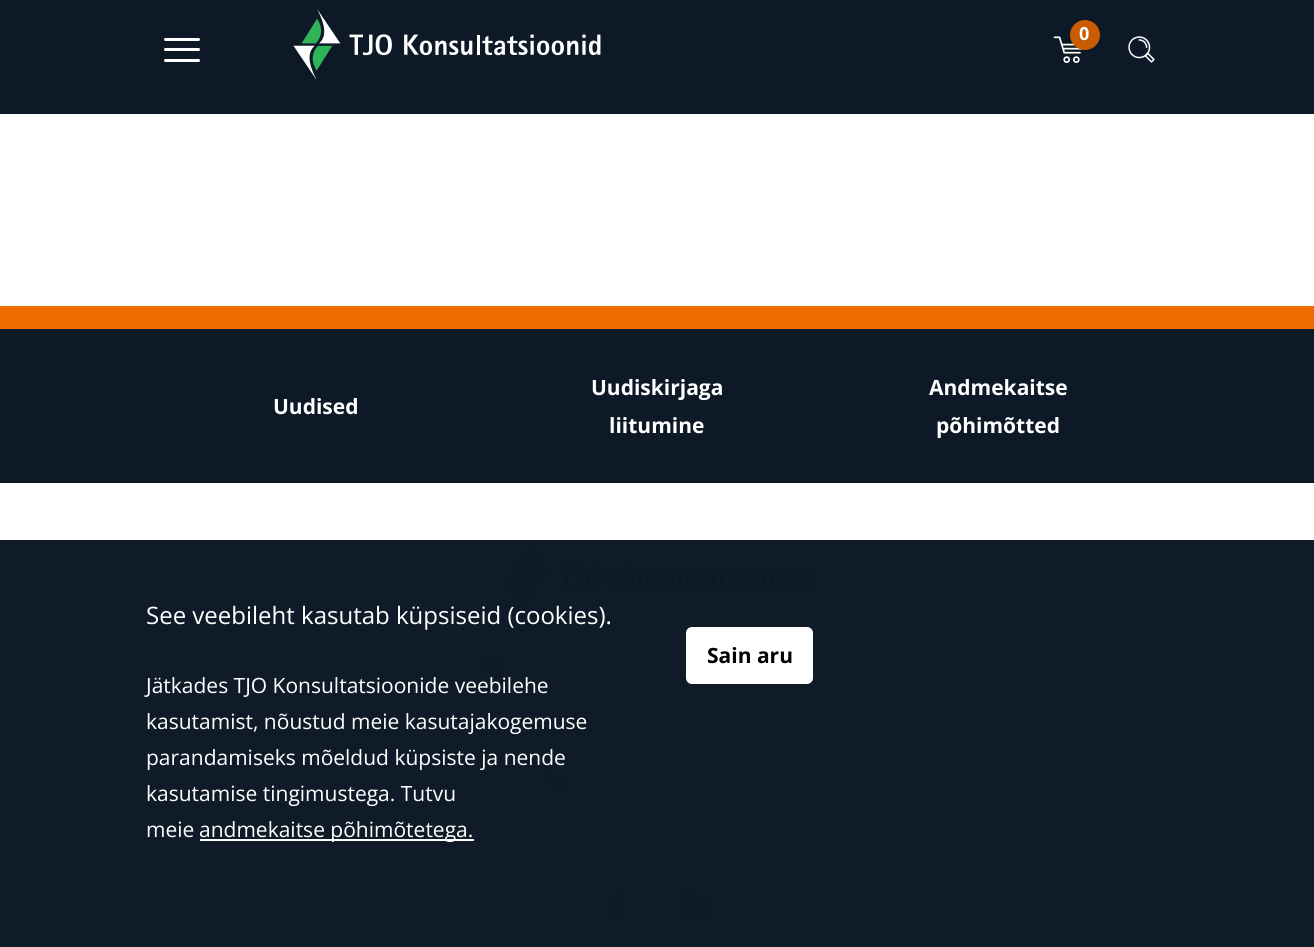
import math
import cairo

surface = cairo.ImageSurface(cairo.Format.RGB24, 1314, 947)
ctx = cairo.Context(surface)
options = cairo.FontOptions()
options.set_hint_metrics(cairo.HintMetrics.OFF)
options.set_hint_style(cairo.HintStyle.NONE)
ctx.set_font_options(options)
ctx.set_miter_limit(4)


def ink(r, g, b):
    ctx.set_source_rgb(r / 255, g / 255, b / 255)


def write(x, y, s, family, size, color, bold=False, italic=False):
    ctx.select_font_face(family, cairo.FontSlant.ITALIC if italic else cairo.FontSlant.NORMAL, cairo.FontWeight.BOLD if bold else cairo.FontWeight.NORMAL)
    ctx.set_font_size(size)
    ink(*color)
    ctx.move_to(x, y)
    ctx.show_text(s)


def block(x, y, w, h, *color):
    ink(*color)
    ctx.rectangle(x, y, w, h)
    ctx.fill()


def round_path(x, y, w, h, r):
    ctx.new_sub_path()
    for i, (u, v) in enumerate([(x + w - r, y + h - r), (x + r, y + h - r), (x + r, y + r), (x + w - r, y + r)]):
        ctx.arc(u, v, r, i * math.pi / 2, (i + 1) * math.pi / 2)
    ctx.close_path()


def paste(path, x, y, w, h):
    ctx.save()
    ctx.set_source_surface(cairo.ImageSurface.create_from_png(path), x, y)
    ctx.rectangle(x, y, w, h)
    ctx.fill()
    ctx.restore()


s1 = dict(family="Open Sans", size=18, color=(255, 255, 255), bold=True)
s2 = dict(family="Open Sans", size=24, color=(255, 255, 255))
s3 = dict(family="Open Sans", size=21, color=(255, 255, 255))
s4 = dict(family="Open Sans", size=21, color=(0, 0, 0), bold=True)
s5 = dict(family="Open Sans", size=21, color=(255, 255, 255), bold=True)

ink(255, 255, 255)
ctx.paint()
block(0, 540, 1314, 407, 15, 27, 40)
block(0, 0, 1314, 114, 13, 25, 38)
paste("pic1.png", 293, 9, 308, 71)
paste("pic2.png", 1053, 36, 30, 27)
ink(201, 91, 0)
ctx.arc(1085, 35, 15, 0, 2 * math.pi)
ctx.fill()
write(1079, 40, "0", **s1)
paste("pic3.png", 1128, 36, 27, 27)
round_path(164, 38, 36, 3, 1.5)
ctx.fill()
round_path(164, 48, 36, 3, 1.5)
ctx.fill()
round_path(164, 59, 36, 3, 1.5)
ctx.fill()
paste("pic4.png", 503, 542, 308, 71)
write(146, 624, "See veebileht kasutab küpsiseid (cookies).", **s2)
paste("pic5.png", 485, 656, 20, 26)
write(146, 693, "Jätkades TJO Konsultatsioonide veebilehe", **s3)
paste("pic6.png", 565, 715, 25, 19)
write(146, 729, "kasutamist, nõustud meie kasutajakogemuse", **s3)
paste("pic7.png", 546, 769, 18, 19)
write(146, 765, "parandamiseks mõeldud küpsiste ja nende", **s3)
write(146, 801, "kasutamise tingimustega. Tutvu", **s3)
write(146, 837, "meie", **s3)
block(200, 839, 274, 2, 255, 255, 255)
write(199, 837, "andmekaitse põhimõtetega.", **s3)
round_path(686, 627, 127, 57, 6)
ctx.fill()
write(707, 663, "Sain aru", **s4)
block(0, 306, 1314, 23, 239, 108, 0)
block(0, 329, 1314, 154, 13, 25, 38)
write(273, 414, "Uudised", **s5)
write(591, 395, "Uudiskirjaga", **s5)
write(609, 433, "liitumine", **s5)
write(929, 395, "Andmekaitse", **s5)
write(936, 433, "põhimõtted", **s5)
paste("pic8.png", 610, 893, 13, 24)
paste("pic9.png", 685, 893, 25, 24)
surface.write_to_png("screenshot.png")
